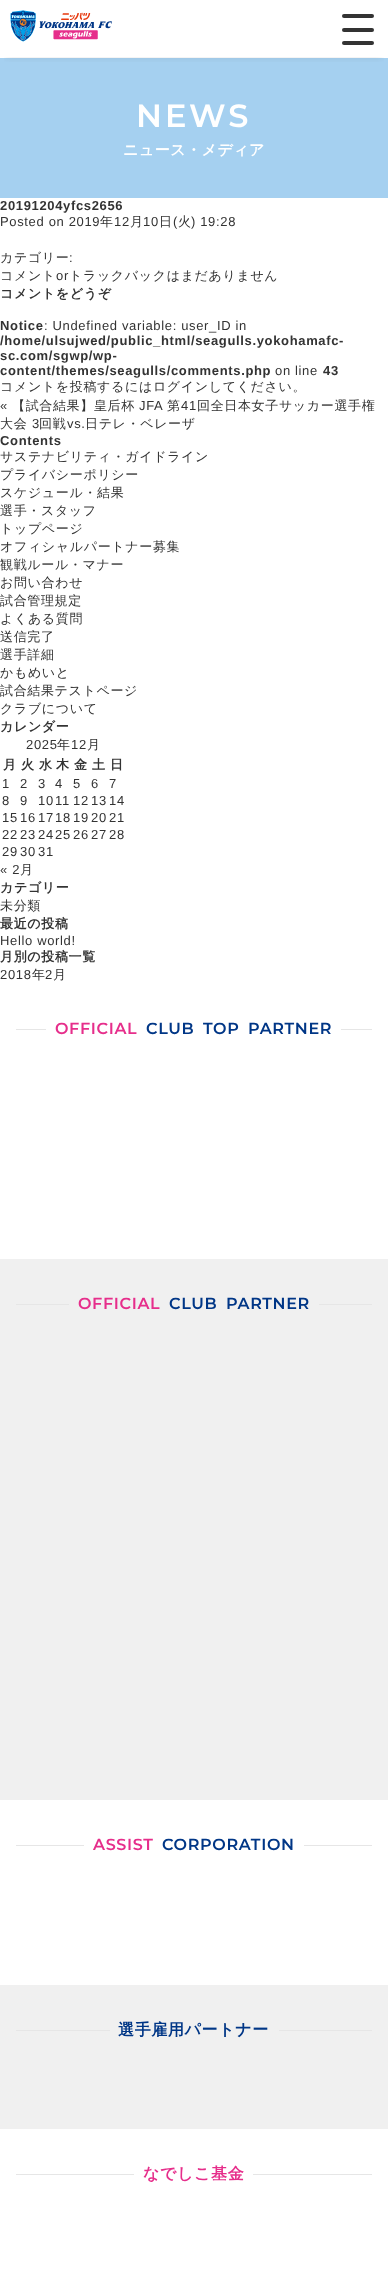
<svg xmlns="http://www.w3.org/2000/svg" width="388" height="2296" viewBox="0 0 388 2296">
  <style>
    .t1 { font: 600 32px Montserrat; letter-spacing: 3px; fill: #fff; }
    .t2 { font: bold 15px WenQuanYi Zen Hei; letter-spacing: 0.5px; fill: #fff; }
    .t3 { font: bold 13px Liberation Sans; letter-spacing: 0.65px; fill: #333; }
    .t4 { font: 13px Liberation Sans; letter-spacing: 0.65px; fill: #333; }
    .t5 { font: 500 13px WenQuanYi Zen Hei; letter-spacing: 0.65px; fill: #333; }
    .t6 { font: bold 13px WenQuanYi Zen Hei; letter-spacing: 0.65px; fill: #333; }
    .t7 { font: 600 16px Montserrat; letter-spacing: 0.65px; fill: #e62e8b; }
    .t8 { font: 600 16px Montserrat; letter-spacing: 0.65px; fill: #003686; }
    .t9 { font: bold 16px WenQuanYi Zen Hei; letter-spacing: 0.65px; fill: #003686; }
    .t10 { font: bold 16px WenQuanYi Zen Hei; letter-spacing: 0.65px; fill: #e62e8b; }
  </style>
  <defs>
    <clipPath id="clip1"><rect x="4" y="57" width="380" height="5"/></clipPath>
  </defs>
  <rect width="100%" height="100%" fill="#fff"/>
  <rect x="0" y="58" width="388" height="140" fill="#a5d0f0"/>
  <g clip-path="url(#clip1)">
    <rect x="6" y="14" width="376" height="45" fill="#6464641a" filter="blur(3px)"/>
  </g>
  <image x="10" y="10" width="102" height="32" href="images/1.png"/>
  <rect x="342" y="14" width="32" height="4" rx="2" fill="#333"/>
  <rect x="342" y="28" width="32" height="4" rx="2" fill="#333"/>
  <rect x="342" y="41" width="32" height="4" rx="2" fill="#333"/>
  <text x="136" y="127" class="t1">NEWS</text>
  <text x="123" y="155" class="t2">ニュース・メディア</text>
  <text x="0" y="210" class="t3">20191204yfcs2656</text>
  <text x="0" y="226" class="t4">Posted on 2019</text>
  <text x="100" y="226" class="t5">年</text>
  <text x="114" y="226" class="t4">12</text>
  <text x="130" y="226" class="t5">月</text>
  <text x="143" y="226" class="t4">10</text>
  <text x="159" y="226" class="t5">日</text>
  <text x="173" y="226" class="t4">(</text>
  <text x="178" y="226" class="t5">火</text>
  <text x="191" y="226" class="t4">) 19:28</text>
  <text x="0" y="262" class="t5">カテゴリー</text>
  <text x="69" y="262" class="t4">:</text>
  <text x="0" y="280" class="t5">コメント</text>
  <text x="56" y="280" class="t4">or</text>
  <text x="69" y="280" class="t5">トラックバックはまだありません</text>
  <text x="0" y="298" class="t6">コメントをどうぞ</text>
  <text x="0" y="330" class="t3">Notice</text>
  <text x="44" y="330" class="t4">: Undefined variable: user_ID in</text>
  <text x="0" y="345" class="t3">/home/ulsujwed/public_html/seagulls.yokohamafc-</text>
  <text x="0" y="360" class="t3">sc.com/sgwp/wp-</text>
  <text x="0" y="375" class="t3">content/themes/seagulls/comments.php</text>
  <text x="275" y="375" class="t4">on line</text>
  <text x="323" y="375" class="t3">43</text>
  <text x="0" y="391" class="t5">コメントを投稿するにはログインしてください。</text>
  <text x="0" y="410" class="t4">«</text>
  <text x="12" y="410" class="t5">【試合結果】皇后杯</text>
  <text x="139" y="410" class="t4">JFA</text>
  <text x="167" y="410" class="t5">第</text>
  <text x="181" y="410" class="t4">41</text>
  <text x="197" y="410" class="t5">回全日本女子サッカー選手権</text>
  <text x="0" y="428" class="t5">大会</text>
  <text x="32" y="428" class="t4">3</text>
  <text x="39" y="428" class="t5">回戦</text>
  <text x="67" y="428" class="t4">vs.</text>
  <text x="85" y="428" class="t5">日テレ・ベレーザ</text>
  <text x="0" y="445" class="t3">Contents</text>
  <text x="0" y="461" class="t5">サステナビリティ・ガイドライン</text>
  <text x="0" y="479" class="t5">プライバシーポリシー</text>
  <text x="0" y="497" class="t5">スケジュール・結果</text>
  <text x="0" y="515" class="t5">選手・スタッフ</text>
  <text x="0" y="533" class="t5">トップページ</text>
  <text x="0" y="551" class="t5">オフィシャルパートナー募集</text>
  <text x="0" y="569" class="t5">観戦ルール・マナー</text>
  <text x="0" y="587" class="t5">お問い合わせ</text>
  <text x="0" y="605" class="t5">試合管理規定</text>
  <text x="0" y="623" class="t5">よくある質問</text>
  <text x="0" y="641" class="t5">送信完了</text>
  <text x="0" y="659" class="t5">選手詳細</text>
  <text x="0" y="677" class="t5">かもめいと</text>
  <text x="0" y="695" class="t5">試合結果テストページ</text>
  <text x="0" y="713" class="t5">クラブについて</text>
  <text x="0" y="731" class="t6">カレンダー</text>
  <text x="26" y="749" class="t4">2025</text>
  <text x="57" y="749" class="t5">年</text>
  <text x="71" y="749" class="t4">12</text>
  <text x="87" y="749" class="t5">月</text>
  <text x="3" y="769" class="t6">月</text>
  <text x="21" y="769" class="t6">火</text>
  <text x="39" y="769" class="t6">水</text>
  <text x="56" y="769" class="t6">木</text>
  <text x="74" y="769" class="t6">金</text>
  <text x="92" y="769" class="t6">土</text>
  <text x="110" y="769" class="t6">日</text>
  <text x="2" y="788" class="t4">1</text>
  <text x="20" y="788" class="t4">2</text>
  <text x="38" y="788" class="t4">3</text>
  <text x="55" y="788" class="t4">4</text>
  <text x="73" y="788" class="t4">5</text>
  <text x="91" y="788" class="t4">6</text>
  <text x="109" y="788" class="t4">7</text>
  <text x="2" y="805" class="t4">8</text>
  <text x="20" y="805" class="t4">9</text>
  <text x="38" y="805" class="t4">10</text>
  <text x="55" y="805" class="t4">11</text>
  <text x="73" y="805" class="t4">12</text>
  <text x="91" y="805" class="t4">13</text>
  <text x="109" y="805" class="t4">14</text>
  <text x="2" y="822" class="t4">15</text>
  <text x="20" y="822" class="t4">16</text>
  <text x="38" y="822" class="t4">17</text>
  <text x="55" y="822" class="t4">18</text>
  <text x="73" y="822" class="t4">19</text>
  <text x="91" y="822" class="t4">20</text>
  <text x="109" y="822" class="t4">21</text>
  <text x="2" y="839" class="t4">22</text>
  <text x="20" y="839" class="t4">23</text>
  <text x="38" y="839" class="t4">24</text>
  <text x="55" y="839" class="t4">25</text>
  <text x="73" y="839" class="t4">26</text>
  <text x="91" y="839" class="t4">27</text>
  <text x="109" y="839" class="t4">28</text>
  <text x="2" y="856" class="t4">29</text>
  <text x="20" y="856" class="t4">30</text>
  <text x="38" y="856" class="t4">31</text>
  <text x="0" y="874" class="t4">« 2</text>
  <text x="20" y="874" class="t5">月</text>
  <text x="0" y="892" class="t6">カテゴリー</text>
  <text x="0" y="910" class="t5">未分類</text>
  <text x="0" y="928" class="t6">最近の投稿</text>
  <text x="0" y="945" class="t4">Hello world!</text>
  <text x="0" y="961" class="t6">月別の投稿一覧</text>
  <text x="0" y="979" class="t4">2018</text>
  <text x="32" y="979" class="t5">年</text>
  <text x="45" y="979" class="t4">2</text>
  <text x="53" y="979" class="t5">月</text>
  <rect x="16" y="1029" width="356" height="1" fill="#e6e6e6"/>
  <rect x="46" y="1029" width="295" height="1" fill="#fff"/>
  <text x="55" y="1034" class="t7">OFFICIAL</text>
  <text x="146" y="1034" class="t8">CLUB TOP PARTNER</text>
  <rect x="0" y="1259" width="388" height="541" fill="#f0f0f0"/>
  <rect x="16" y="1304" width="356" height="1" fill="#e6e6e6"/>
  <rect x="69" y="1304" width="250" height="1" fill="#f0f0f0"/>
  <text x="78" y="1309" class="t7">OFFICIAL</text>
  <text x="169" y="1309" class="t8">CLUB PARTNER</text>
  <rect x="16" y="1845" width="356" height="1" fill="#e6e6e6"/>
  <rect x="84" y="1845" width="220" height="1" fill="#fff"/>
  <text x="93" y="1850" class="t7">ASSIST</text>
  <text x="162" y="1850" class="t8">CORPORATION</text>
  <rect x="0" y="1985" width="388" height="144" fill="#f0f0f0"/>
  <rect x="16" y="2030" width="356" height="1" fill="#e6e6e6"/>
  <rect x="110" y="2030" width="169" height="1" fill="#f0f0f0"/>
  <text x="118" y="2035" class="t9">選手雇用パートナー</text>
  <rect x="16" y="2174" width="356" height="1" fill="#e6e6e6"/>
  <rect x="134" y="2174" width="119" height="1" fill="#fff"/>
  <text x="143" y="2179" class="t10">なでしこ基金</text>
</svg>
